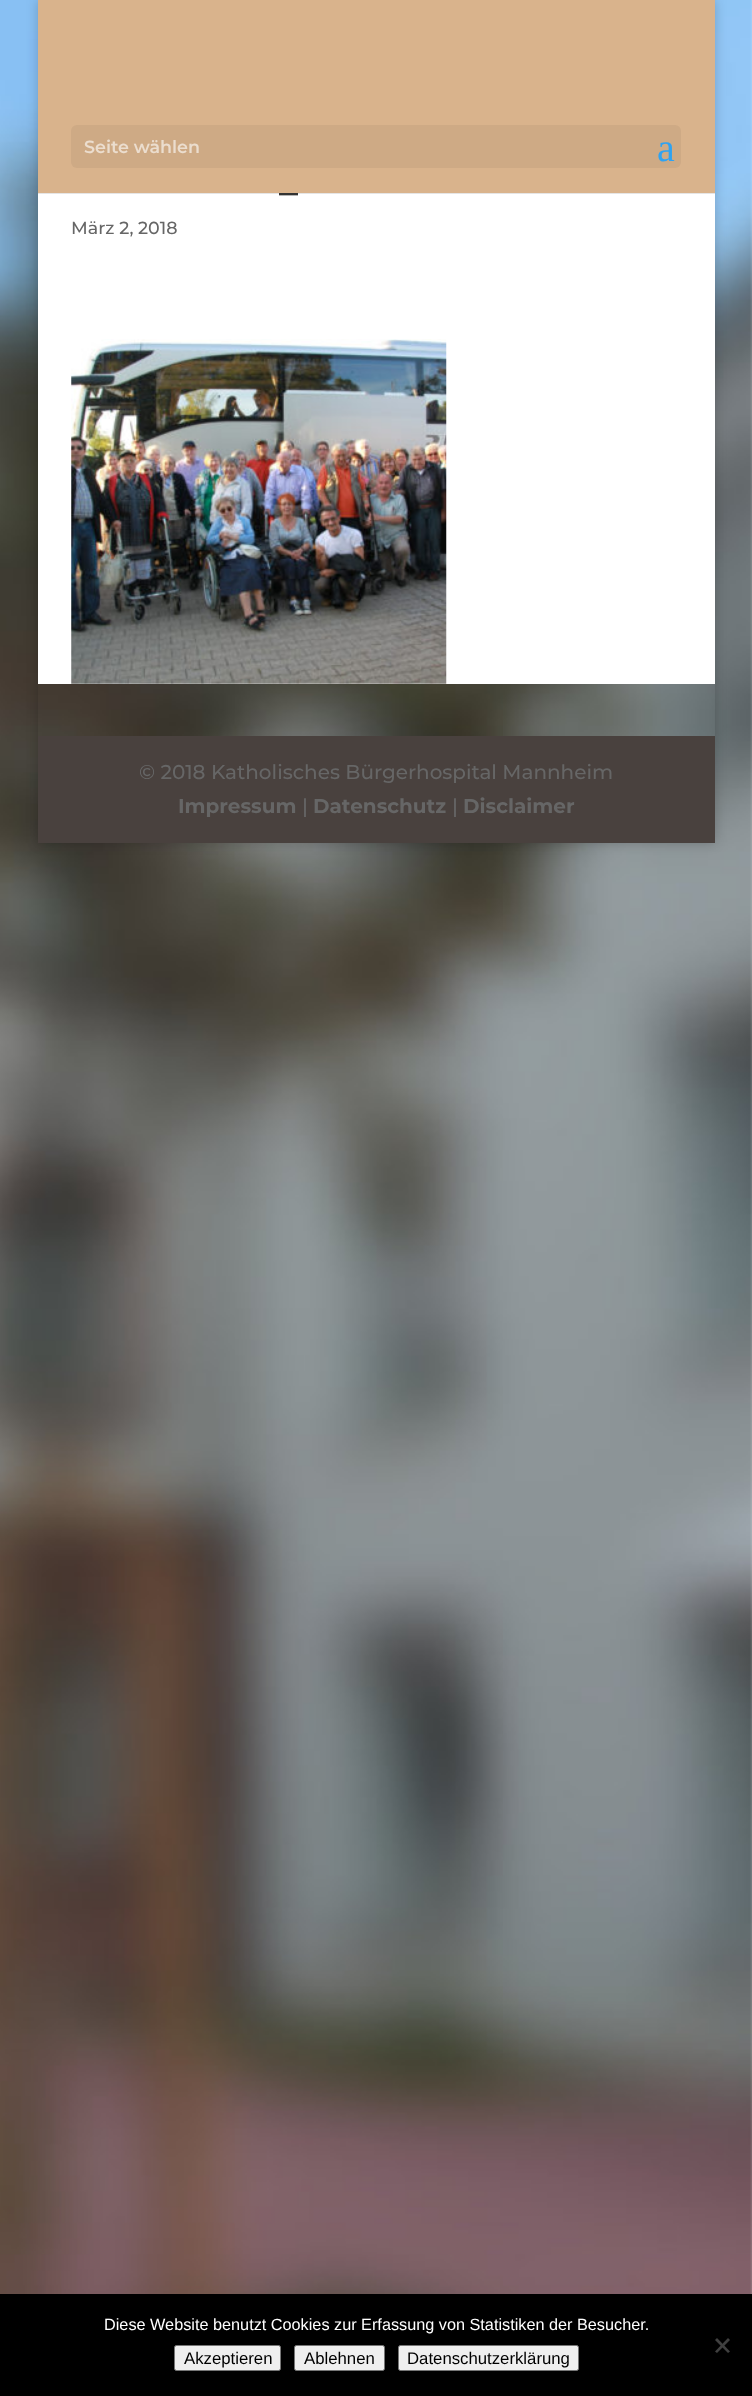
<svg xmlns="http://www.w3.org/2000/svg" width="752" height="2396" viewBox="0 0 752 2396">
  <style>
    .t1 { font: 600 17.5px Montserrat; fill: #ebddce; }
    .t2 { font: 40px Liberation Serif; fill: #2ea3f2; }
    .t3 { font: 500 38px Montserrat; fill: #333; }
    .t4 { font: 500 17.5px Montserrat; fill: #666; }
    .t5 { font: 500 20px Montserrat; fill: #666; }
    .t6 { font: bold 20px Montserrat; fill: #666; }
    .t7 { font: 16.25px Liberation Sans; fill: #fff; }
    .t8 { font: 16.75px Liberation Sans; fill: #000; }
  </style>
  <defs>
    <clipPath id="clip1"><path d="M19 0H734V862H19ZM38 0H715V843H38Z" clip-rule="evenodd"/></clipPath>
  </defs>
  <rect width="100%" height="100%" fill="#fff"/>
  <image x="0" y="0" width="752" height="2294" href="images/1.png"/>
  <g clip-path="url(#clip1)">
    <rect x="38" y="0" width="677" height="843" fill="#00000033" filter="blur(6px)"/>
  </g>
  <rect x="38" y="193" width="677" height="491" fill="#fff"/>
  <rect x="38" y="193" width="677" height="1" fill="#0000001a"/>
  <rect x="38" y="0" width="677" height="193" fill="#d9b38c"/>
  <rect x="71" y="125" width="610" height="43" rx="6" fill="#ceaa85"/>
  <text x="84" y="153" class="t1">Seite wählen</text>
  <text x="657" y="161" class="t2">a</text>
  <text x="279" y="193" class="t3">_</text>
  <text x="71" y="234" class="t4">März 2, 2018</text>
  <image x="71" y="339" width="376" height="345" href="images/2.png"/>
  <rect x="38" y="736" width="677" height="107" fill="#49413e"/>
  <text x="139" y="779" class="t5">© 2018 Katholisches Bürgerhospital Mannheim</text>
  <text x="178" y="813" class="t6">Impressum</text>
  <text x="302" y="813" class="t5">|</text>
  <text x="313" y="813" class="t6">Datenschutz</text>
  <text x="452" y="813" class="t5">|</text>
  <text x="463" y="813" class="t6">Disclaimer</text>
  <rect x="0" y="2294" width="752" height="102" fill="#000"/>
  <text x="104" y="2330" class="t7">Diese Website benutzt Cookies zur Erfassung von Statistiken der Besucher.</text>
  <path d="M728 2338L730 2340L717 2353L715 2351.5Z" fill="#404040"/>
  <path d="M715 2340L717 2338L730 2351.5L728 2353Z" fill="#404040"/>
  <rect x="174.5" y="2345.5" width="106" height="25" rx="2" fill="#efefef" stroke="#767676"/>
  <text x="184" y="2364" class="t8">Akzeptieren</text>
  <rect x="294.5" y="2345.5" width="90" height="25" rx="2" fill="#efefef" stroke="#767676"/>
  <text x="304" y="2364" class="t8">Ablehnen</text>
  <rect x="398.5" y="2345.5" width="180" height="25" rx="2" fill="#efefef" stroke="#767676"/>
  <text x="407" y="2364" class="t8">Datenschutzerklärung</text>
</svg>
